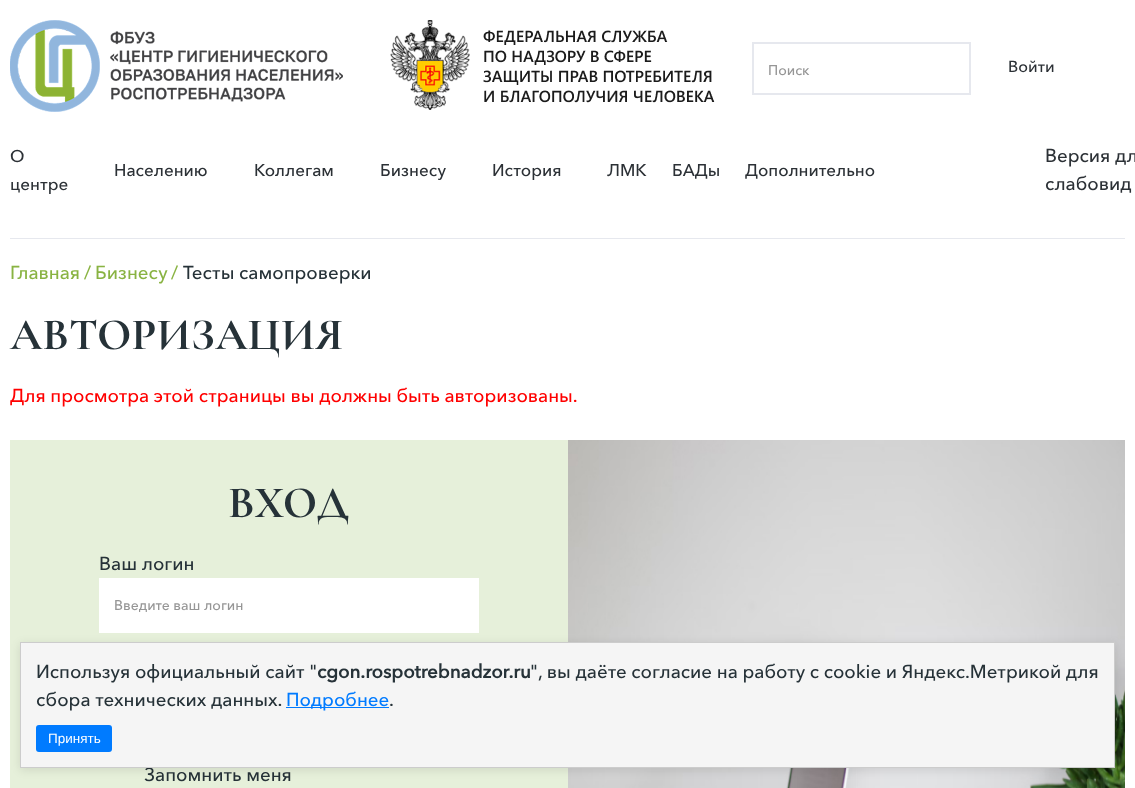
<svg xmlns="http://www.w3.org/2000/svg" width="1135" height="788" viewBox="0 0 1135 788">
  <style>
    .t1 { font: 500 14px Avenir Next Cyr; fill: #969696; }
    .t2 { font: 500 16px Avenir Next Cyr; fill: #2c3136; }
    .t3 { font: 500 17px Avenir Next Cyr; fill: #2c3136; }
    .t4 { font: 500 18.7px Avenir Next Cyr; fill: #2c3136; }
    .t5 { font: 500 18.7px Avenir Next Cyr; fill: #89b342; }
    .t6 { font: 500 18.7px Avenir Next Cyr; fill: #263238; }
    .t7 { font: bold 45px Cormorant Garamond; fill: #263238; }
    .t8 { font: 500 18.7px Avenir Next Cyr; fill: #f00; }
    .t9 { font: bold 18.7px Avenir Next Cyr; fill: #263238; }
    .t10 { font: 500 18.7px Avenir Next Cyr; fill: #007bff; }
    .t11 { font: 13.5px Liberation Sans; fill: #fff; }
  </style>
  <rect width="100%" height="100%" fill="#fff"/>
  <image x="10" y="20" width="333" height="92" href="images/1.png"/>
  <image x="390" y="20" width="325" height="90" href="images/2.png"/>
  <rect x="753" y="43" width="217" height="51" fill="none" stroke="#e6e8ee" stroke-width="2"/>
  <text x="768" y="75" class="t1">Поиск</text>
  <text x="1008" y="72" class="t2">Войти</text>
  <text x="10" y="162" class="t3">О</text>
  <text x="10" y="190" class="t3">центре</text>
  <text x="114" y="176" class="t3">Населению</text>
  <text x="254" y="176" class="t3">Коллегам</text>
  <text x="380" y="176" class="t3">Бизнесу</text>
  <text x="492" y="176" class="t3">История</text>
  <text x="607" y="176" class="t3">ЛМК</text>
  <text x="672" y="176" class="t3">БАДы</text>
  <text x="745" y="176" class="t3">Дополнительно</text>
  <text x="1045" y="162" class="t4">Версия дл</text>
  <text x="1045" y="190" class="t4">слабовид</text>
  <rect x="10" y="238" width="1115" height="1" fill="#e6e8ee"/>
  <text x="10" y="279" class="t5">Главная</text>
  <text x="84" y="279" class="t5">/</text>
  <text x="95" y="279" class="t5">Бизнесу</text>
  <text x="171" y="279" class="t5">/</text>
  <text x="183" y="279" class="t6">Тесты самопроверки</text>
  <text x="10" y="349" class="t7">АВТОРИЗАЦИЯ</text>
  <text x="10" y="402" class="t8">Для просмотра этой страницы вы должны быть авторизованы.</text>
  <rect x="10" y="440" width="558" height="348" fill="#e6f0da"/>
  <text x="228" y="517" class="t7">ВХОД</text>
  <text x="99" y="570" class="t6">Ваш логин</text>
  <rect x="99" y="578" width="380" height="55" fill="#fff"/>
  <text x="114" y="610" class="t1">Введите ваш логин</text>
  <text x="144" y="781" class="t6">Запомнить меня</text>
  <image x="568" y="440" width="557" height="348" href="images/3.png"/>
  <rect x="20" y="644" width="1095" height="126" fill="#0000001a" filter="blur(5px)"/>
  <rect x="20.5" y="642.5" width="1094" height="125" fill="#f5f5f5" stroke="#ccc"/>
  <text x="36" y="678" class="t6">Используя официальный сайт "</text>
  <text x="317" y="678" class="t9">cgon.rospotrebnadzor.ru</text>
  <text x="530" y="678" class="t6">", вы даёте согласие на работу с cookie и Яндекс.Метрикой для</text>
  <text x="36" y="706" class="t6">сбора технических данных.</text>
  <rect x="286" y="707" width="103" height="1" fill="#007bff"/>
  <text x="286" y="706" class="t10">Подробнее</text>
  <text x="389" y="706" class="t6">.</text>
  <rect x="36" y="725" width="76" height="27" rx="3" fill="#007bff"/>
  <text x="48" y="743" class="t11">Принять</text>
</svg>
